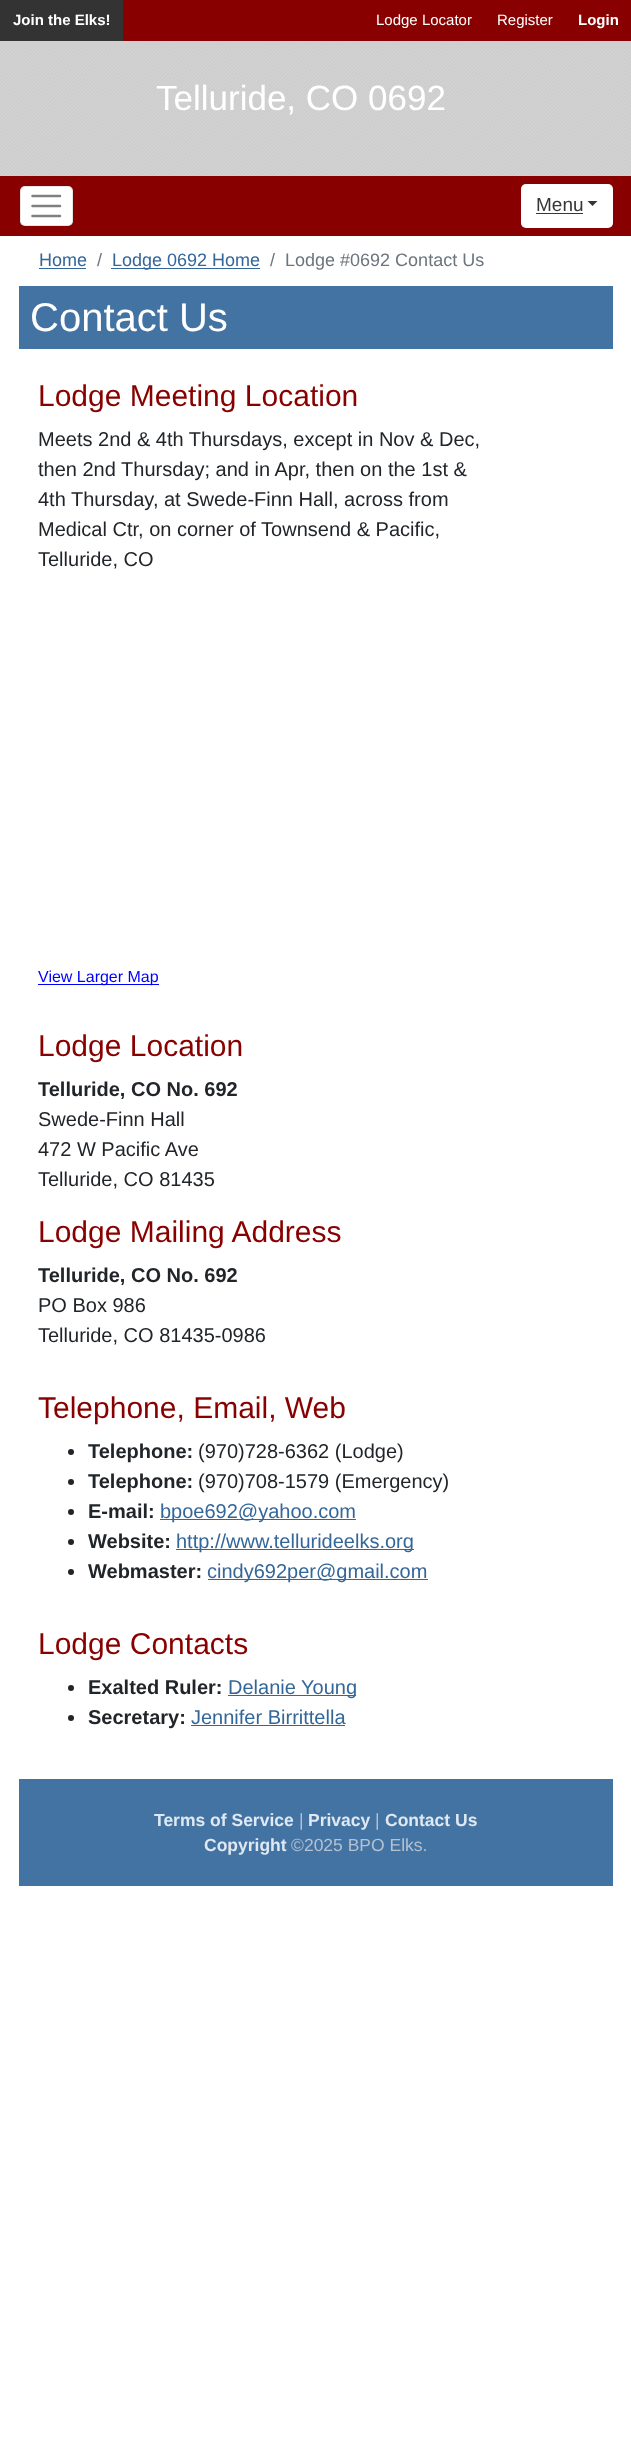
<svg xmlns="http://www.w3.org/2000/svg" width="631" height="2439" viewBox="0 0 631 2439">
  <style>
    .t1 { font: bold 15px Liberation Sans; fill: #fff; }
    .t2 { font: 15px Liberation Sans; fill: #fff; }
    .t3 { font: 35px Liberation Sans; fill: #fff; }
    .t4 { font: 19px Liberation Sans; fill: #363636; }
    .t5 { font: 18px Liberation Sans; fill: #369; }
    .t6 { font: 18px Liberation Sans; fill: #6c757d; }
    .t7 { font: 40px Liberation Sans; fill: #fff; }
    .t8 { font: 30px Liberation Sans; fill: #800; }
    .t9 { font: 20px Liberation Sans; fill: #212529; }
    .t10 { font: 16px Liberation Sans; fill: #00f; }
    .t11 { font: bold 20px Liberation Sans; fill: #212529; }
    .t12 { font: 20px Liberation Sans; fill: #369; }
    .t13 { font: bold 17.5px Liberation Sans; fill: #dfe8f3; }
    .t14 { font: 17.5px Liberation Sans; fill: #b4c2d2; }
  </style>
  <rect width="100%" height="100%" fill="#fff"/>
  <image x="0" y="41" width="631" height="135" href="images/1.png"/>
  <rect x="123" y="0" width="508" height="41" fill="#800"/>
  <rect x="0" y="0" width="123" height="41" fill="#333"/>
  <text x="13" y="25" class="t1">Join the Elks!</text>
  <text x="376" y="25" class="t2">Lodge Locator</text>
  <text x="497" y="25" class="t2">Register</text>
  <text x="578" y="25" class="t1">Login</text>
  <text x="156" y="110" class="t3">Telluride, CO 0692</text>
  <rect x="0" y="176" width="631" height="60" fill="#800"/>
  <rect x="20" y="186" width="53" height="40" rx="5" fill="#fff"/>
  <rect x="20.5" y="186.5" width="52" height="39" rx="4.5" fill="none" stroke="#0000001a"/>
  <path d="M32.5 196H60M32.5 206H60M32.5 216H60" fill="none" stroke="#808080" stroke-width="2.5" stroke-linecap="round"/>
  <rect x="521" y="184" width="92" height="44" rx="5" fill="#fff"/>
  <text x="536" y="211" class="t4">Menu</text>
  <rect x="536" y="213" width="47" height="1" fill="#363636"/>
  <path d="M587.5 201H597.5L592.5 206Z" fill="#363636"/>
  <text x="39" y="266" class="t5">Home</text>
  <rect x="39" y="268" width="47" height="1" fill="#369"/>
  <text x="97" y="266" class="t6">/</text>
  <rect x="111" y="268" width="149" height="1" fill="#369"/>
  <text x="112" y="266" class="t5">Lodge 0692 Home</text>
  <text x="270" y="266" class="t6">/</text>
  <text x="285" y="266" class="t6">Lodge #0692 Contact Us</text>
  <rect x="19" y="286" width="594" height="63" fill="#4373a2"/>
  <text x="30" y="331" class="t7">Contact Us</text>
  <text x="38" y="406" class="t8">Lodge Meeting Location</text>
  <text x="38" y="446" class="t9">Meets 2nd &amp; 4th Thursdays, except in Nov &amp; Dec,</text>
  <text x="38" y="476" class="t9">then 2nd Thursday; and in Apr, then on the 1st &amp;</text>
  <text x="38" y="506" class="t9">4th Thursday, at Swede-Finn Hall, across from</text>
  <text x="38" y="536" class="t9">Medical Ctr, on corner of Townsend &amp; Pacific,</text>
  <text x="38" y="566" class="t9">Telluride, CO</text>
  <rect x="38" y="984" width="121" height="1" fill="#00f"/>
  <text x="38" y="982" class="t10">View Larger Map</text>
  <text x="38" y="1056" class="t8">Lodge Location</text>
  <text x="38" y="1096" class="t11">Telluride, CO No. 692</text>
  <text x="38" y="1126" class="t9">Swede-Finn Hall</text>
  <text x="38" y="1156" class="t9">472 W Pacific Ave</text>
  <text x="38" y="1186" class="t9">Telluride, CO 81435</text>
  <text x="38" y="1242" class="t8">Lodge Mailing Address</text>
  <text x="38" y="1282" class="t11">Telluride, CO No. 692</text>
  <text x="38" y="1312" class="t9">PO Box 986</text>
  <text x="38" y="1342" class="t9">Telluride, CO 81435-0986</text>
  <text x="38" y="1418" class="t8">Telephone, Email, Web</text>
  <circle cx="71" cy="1452" r="3" fill="#212529"/>
  <text x="88" y="1458" class="t11">Telephone:</text>
  <text x="198" y="1458" class="t9">(970)728-6362 (Lodge)</text>
  <circle cx="71" cy="1482" r="3" fill="#212529"/>
  <text x="88" y="1488" class="t11">Telephone:</text>
  <text x="198" y="1488" class="t9">(970)708-1579 (Emergency)</text>
  <circle cx="71" cy="1512" r="3" fill="#212529"/>
  <text x="88" y="1518" class="t11">E-mail:</text>
  <rect x="160" y="1519" width="196" height="1" fill="#369"/>
  <text x="160" y="1518" class="t12">bpoe692@yahoo.com</text>
  <circle cx="71" cy="1542" r="3" fill="#212529"/>
  <text x="88" y="1548" class="t11">Website:</text>
  <rect x="176" y="1549" width="238" height="1" fill="#369"/>
  <text x="176" y="1548" class="t12">http://www.tellurideelks.org</text>
  <circle cx="71" cy="1572" r="3" fill="#212529"/>
  <text x="88" y="1578" class="t11">Webmaster:</text>
  <rect x="208" y="1579" width="220" height="1" fill="#369"/>
  <text x="207" y="1578" class="t12">cindy692per@gmail.com</text>
  <text x="38" y="1654" class="t8">Lodge Contacts</text>
  <circle cx="71" cy="1688" r="3" fill="#212529"/>
  <text x="88" y="1694" class="t11">Exalted Ruler:</text>
  <rect x="228" y="1695" width="128" height="1" fill="#369"/>
  <text x="228" y="1694" class="t12">Delanie Young</text>
  <circle cx="71" cy="1718" r="3" fill="#212529"/>
  <text x="88" y="1724" class="t11">Secretary:</text>
  <text x="191" y="1724" class="t12">Jennifer Birrittella</text>
  <rect x="191" y="1725" width="154" height="1" fill="#369"/>
  <rect x="19" y="1779" width="594" height="107" fill="#4373a2"/>
  <text x="154" y="1826" class="t13">Terms of Service</text>
  <text x="299" y="1826" class="t14">|</text>
  <text x="308" y="1826" class="t13">Privacy</text>
  <text x="375" y="1826" class="t14">|</text>
  <text x="385" y="1826" class="t13">Contact Us</text>
  <text x="204" y="1851" class="t13">Copyright</text>
  <text x="291" y="1851" class="t14">©2025 BPO Elks.</text>
</svg>
